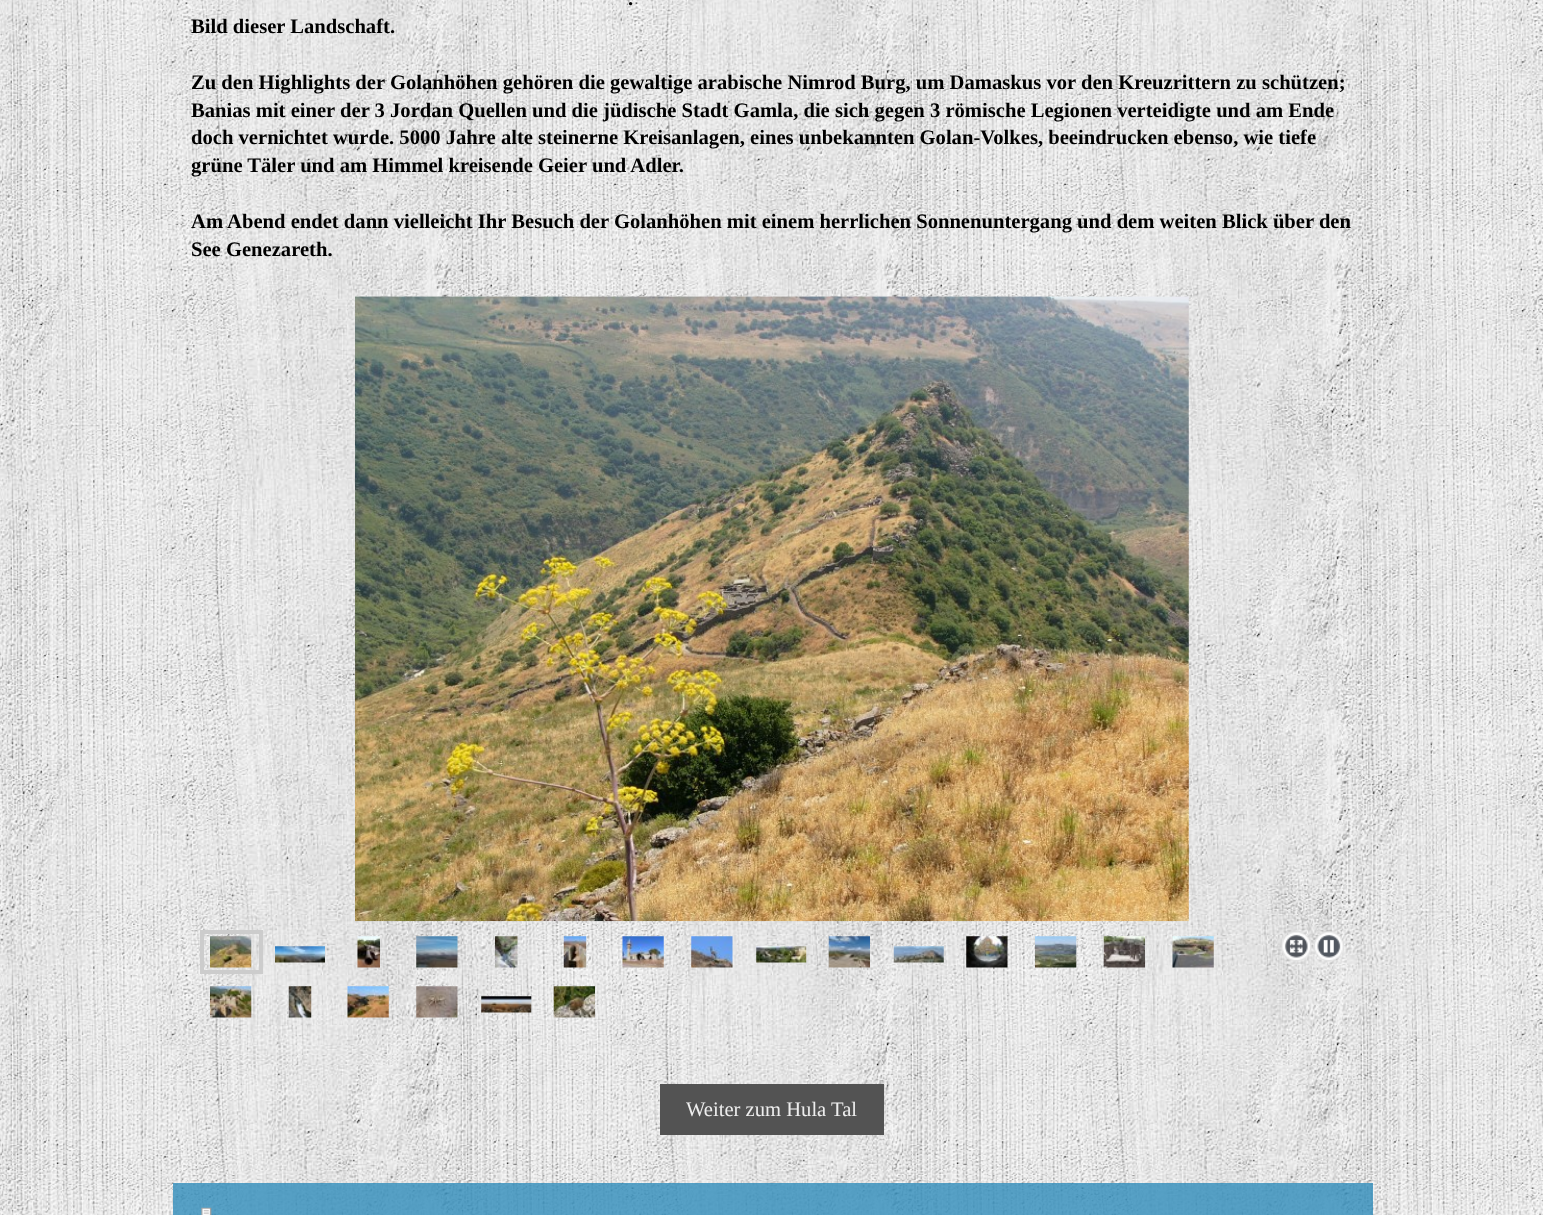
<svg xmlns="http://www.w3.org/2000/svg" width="1543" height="1215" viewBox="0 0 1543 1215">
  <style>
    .t1 { font: bold 20.62px Liberation Serif; fill: #000; }
    .t2 { font: 20.62px Liberation Serif; fill: #eee; }
  </style>
  <rect width="100%" height="100%" fill="#fff"/>
  <image x="0" y="0" width="1543" height="1215" href="images/1.png"/>
  <text x="628" y="5" class="t1">.</text>
  <text x="191" y="33" class="t1">Bild dieser Landschaft.</text>
  <text x="191" y="89" class="t1">Zu den Highlights der Golanhöhen gehören die gewaltige arabische Nimrod Burg, um Damaskus vor den Kreuzrittern zu schützen;</text>
  <text x="191" y="117" class="t1">Banias mit einer der 3 Jordan Quellen und die jüdische Stadt Gamla, die sich gegen 3 römische Legionen verteidigte und am Ende</text>
  <text x="191" y="144" class="t1">doch vernichtet wurde. 5000 Jahre alte steinerne Kreisanlagen, eines unbekannten Golan-Volkes, beeindrucken ebenso, wie tiefe</text>
  <text x="191" y="172" class="t1">grüne Täler und am Himmel kreisende Geier und Adler.</text>
  <text x="191" y="228" class="t1">Am Abend endet dann vielleicht Ihr Besuch der Golanhöhen mit einem herrlichen Sonnenuntergang und dem weiten Blick über den</text>
  <text x="191" y="256" class="t1">See Genezareth.</text>
  <image x="355" y="296" width="834" height="626" href="images/2.png"/>
  <rect x="202" y="932" width="59" height="40" fill="none" stroke="#ccc" stroke-width="4"/>
  <image x="210" y="936" width="42" height="32" href="images/3.png"/>
  <image x="275" y="946" width="50" height="17" href="images/4.png"/>
  <image x="357" y="936" width="23" height="32" href="images/5.png"/>
  <image x="416" y="936" width="42" height="32" href="images/6.png"/>
  <image x="495" y="936" width="23" height="32" href="images/7.png"/>
  <image x="563" y="936" width="24" height="32" href="images/8.png"/>
  <image x="622" y="936" width="42" height="32" href="images/9.png"/>
  <image x="691" y="936" width="42" height="32" href="images/10.png"/>
  <image x="756" y="946" width="51" height="17" href="images/11.png"/>
  <image x="828" y="936" width="42" height="32" href="images/12.png"/>
  <image x="893" y="946" width="51" height="17" href="images/13.png"/>
  <image x="966" y="936" width="42" height="32" href="images/14.png"/>
  <image x="1035" y="936" width="42" height="32" href="images/15.png"/>
  <image x="1103" y="936" width="42" height="32" href="images/16.png"/>
  <image x="1172" y="936" width="42" height="32" href="images/17.png"/>
  <image x="1281" y="931" width="31" height="30" href="images/18.png"/>
  <image x="1314" y="931" width="30" height="31" href="images/19.png"/>
  <image x="210" y="986" width="42" height="32" href="images/20.png"/>
  <image x="288" y="986" width="24" height="32" href="images/21.png"/>
  <image x="347" y="986" width="42" height="32" href="images/22.png"/>
  <image x="416" y="986" width="42" height="32" href="images/23.png"/>
  <image x="481" y="996" width="51" height="17" href="images/24.png"/>
  <image x="553" y="986" width="42" height="32" href="images/25.png"/>
  <rect x="660" y="1084" width="224" height="51" fill="#535353"/>
  <text x="686" y="1116" class="t2">Weiter zum Hula Tal</text>
  <rect x="173" y="1183" width="1200" height="32" fill="#308cbacc"/>
  <image x="201" y="1207" width="11" height="8" href="images/26.png"/>
</svg>
